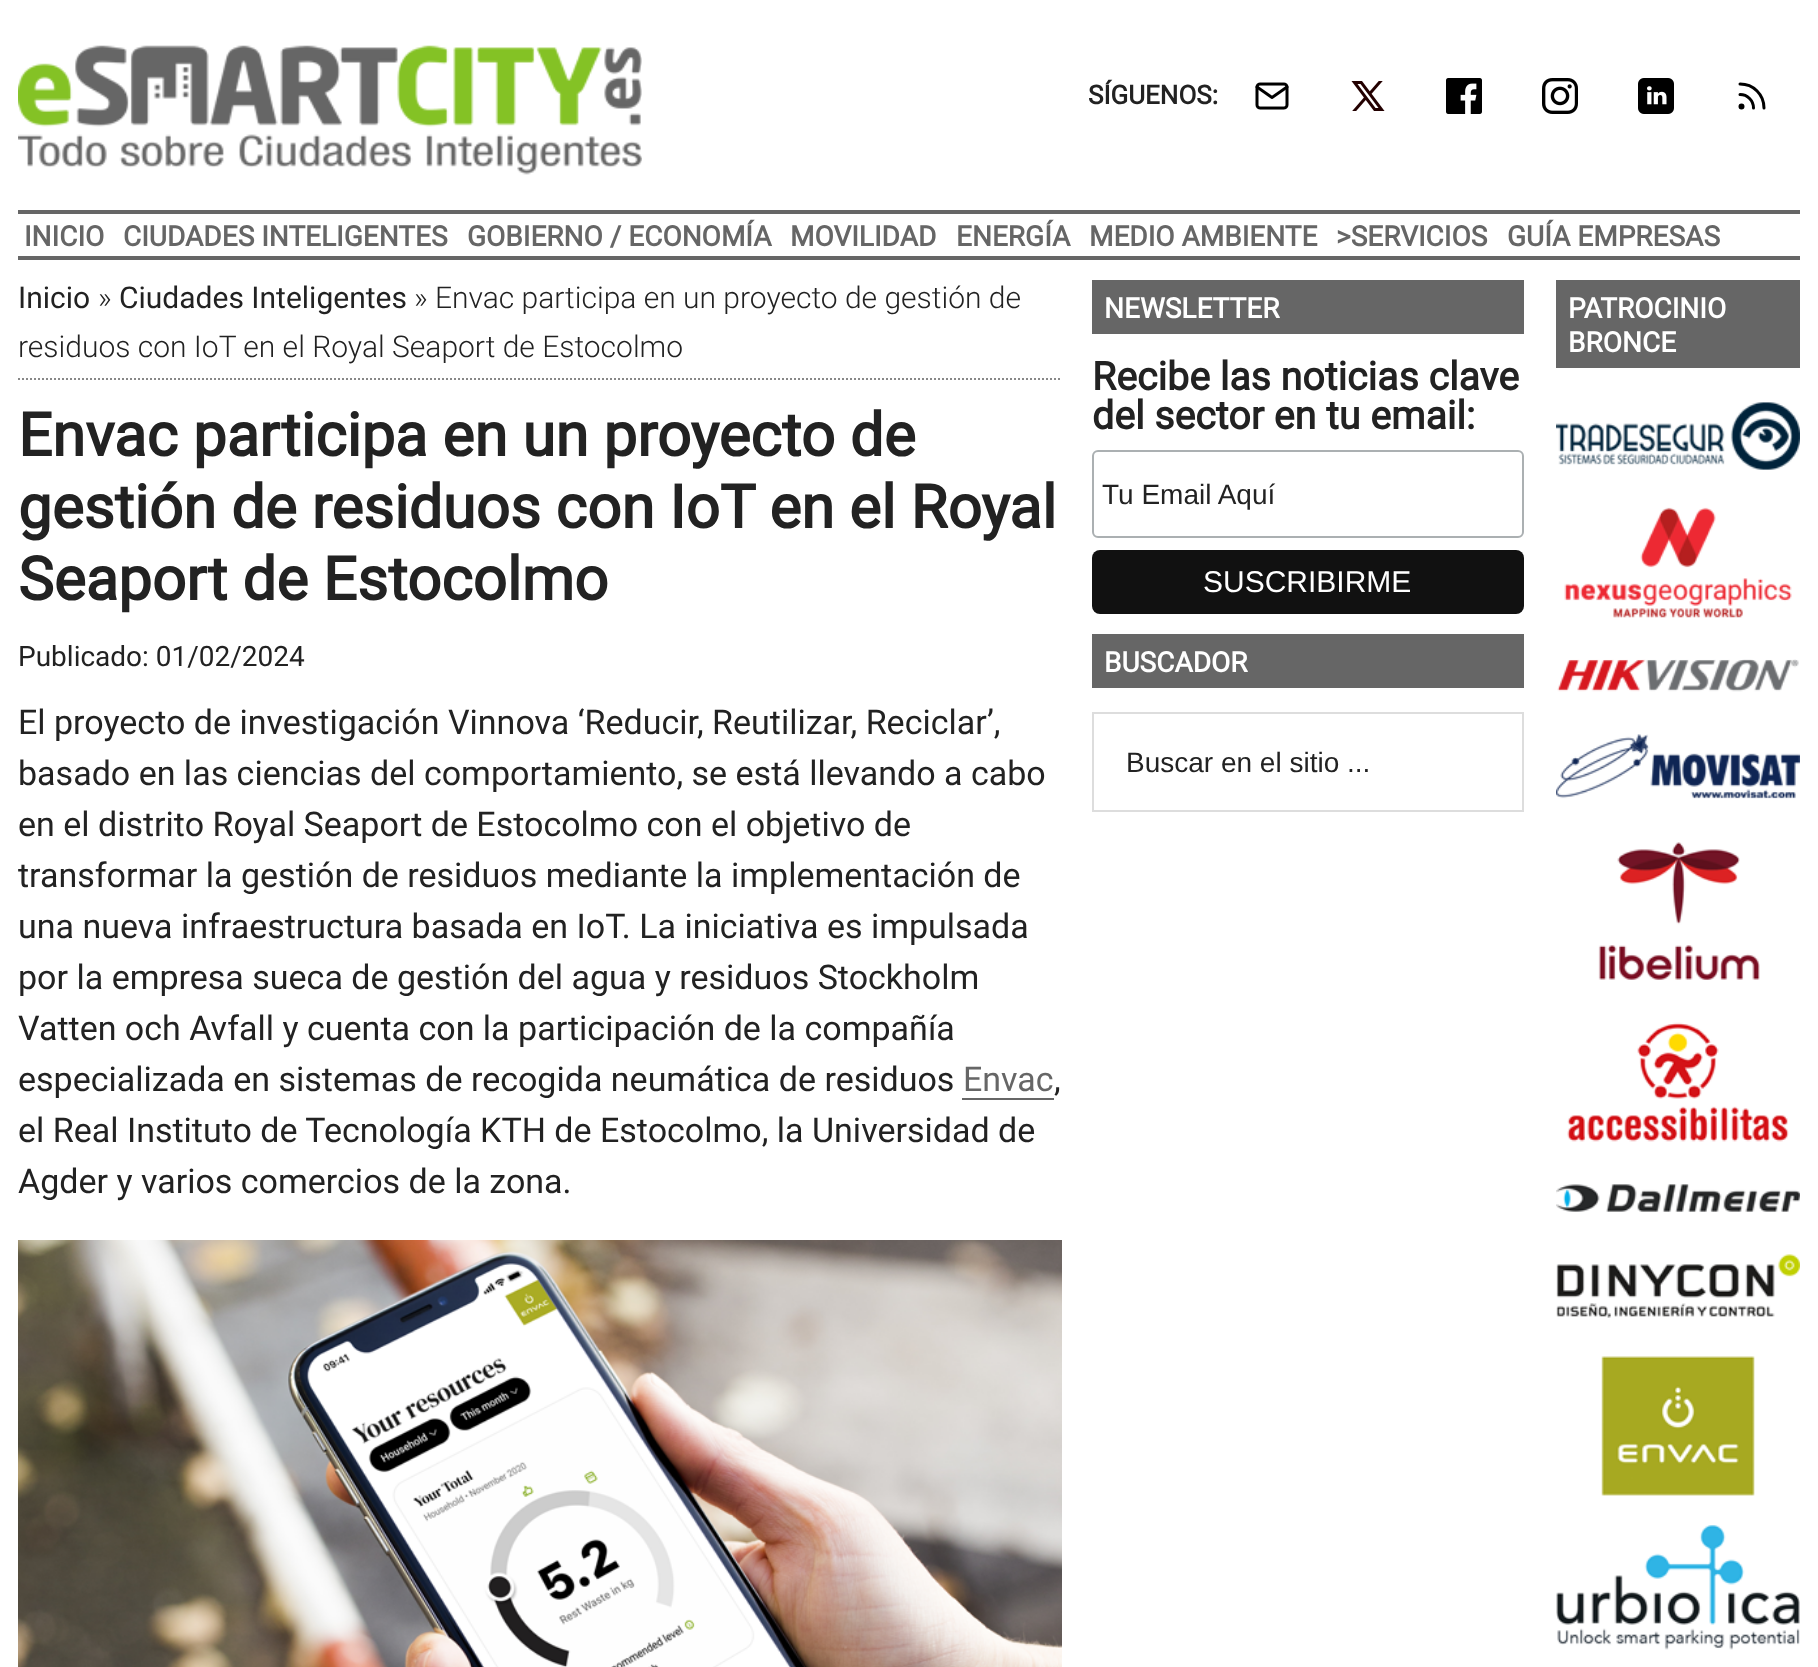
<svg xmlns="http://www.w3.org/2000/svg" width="1818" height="1667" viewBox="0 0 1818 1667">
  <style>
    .t1 { font: bold 26px Roboto; fill: #222; }
    .t2 { font: bold 28px Roboto; fill: #666; }
    .t3 { font: 30px Roboto; fill: #222; }
    .t4 { font: 300 30px Roboto; fill: #222; }
    .t5 { font: bold 60px Roboto; fill: #222; }
    .t6 { font: 28px Roboto; fill: #222; }
    .t7 { font: 34px Roboto; fill: #222; }
    .t8 { font: 34px Roboto; fill: #666; }
    .t9 { font: bold 28px Roboto; fill: #fff; }
    .t10 { font: bold 39.25px Roboto; fill: #222; }
    .t11 { font: 28px Liberation Sans; fill: #222; }
    .t12 { font: 30px Liberation Sans; fill: #fff; }
  </style>
  <rect width="100%" height="100%" fill="#fff"/>
  <rect x="18" y="210" width="1782" height="4" fill="#666"/>
  <image x="18" y="45" width="624" height="130" href="images/1.png"/>
  <text x="1088" y="104" class="t1">SÍGUENOS:</text>
  <image x="1255" y="82" width="34" height="28" href="images/2.png"/>
  <image x="1351" y="81" width="34" height="30" href="images/3.png"/>
  <image x="1446" y="78" width="36" height="36" href="images/4.png"/>
  <image x="1542" y="78" width="36" height="36" href="images/5.png"/>
  <image x="1638" y="78" width="36" height="36" href="images/6.png"/>
  <path d="M1740 94.5C1747.5 94.5 1753.5 100.5 1753.5 108M1740 84C1753.5 84 1764 94.5 1764 108" fill="none" stroke="#000" stroke-width="3" stroke-linecap="round" stroke-linejoin="round"/>
  <circle cx="1741.5" cy="106.5" r="1.5" fill="none" stroke="#000" stroke-width="3"/>
  <rect x="18" y="256" width="1782" height="4" fill="#666"/>
  <text x="24" y="246" class="t2">INICIO</text>
  <text x="123" y="246" class="t2">CIUDADES INTELIGENTES</text>
  <text x="467" y="246" class="t2">GOBIERNO / ECONOMÍA</text>
  <text x="790" y="246" class="t2">MOVILIDAD</text>
  <text x="956" y="246" class="t2">ENERGÍA</text>
  <text x="1089" y="246" class="t2">MEDIO AMBIENTE</text>
  <text x="1336" y="246" class="t2">&gt;SERVICIOS</text>
  <text x="1507" y="246" class="t2">GUÍA EMPRESAS</text>
  <path d="M18 379H1062" fill="none" stroke="#888" stroke-width="2" stroke-dasharray="2 2"/>
  <text x="18" y="308" class="t3">Inicio</text>
  <text x="98" y="308" class="t4">»</text>
  <text x="119" y="308" class="t3">Ciudades Inteligentes</text>
  <text x="414" y="308" class="t4">» Envac participa en un proyecto de gestión de</text>
  <text x="18" y="357" class="t4">residuos con IoT en el Royal Seaport de Estocolmo</text>
  <text x="18" y="456" class="t5">Envac participa en un proyecto de</text>
  <text x="18" y="528" class="t5">gestión de residuos con IoT en el Royal</text>
  <text x="18" y="600" class="t5">Seaport de Estocolmo</text>
  <text x="18" y="666" class="t6">Publicado: 01/02/2024</text>
  <text x="18" y="734" class="t7">El proyecto de investigación Vinnova ‘Reducir, Reutilizar, Reciclar’,</text>
  <text x="18" y="785" class="t7">basado en las ciencias del comportamiento, se está llevando a cabo</text>
  <text x="18" y="836" class="t7">en el distrito Royal Seaport de Estocolmo con el objetivo de</text>
  <text x="18" y="887" class="t7">transformar la gestión de residuos mediante la implementación de</text>
  <text x="18" y="938" class="t7">una nueva infraestructura basada en IoT. La iniciativa es impulsada</text>
  <text x="18" y="989" class="t7">por la empresa sueca de gestión del agua y residuos Stockholm</text>
  <text x="18" y="1040" class="t7">Vatten och Avfall y cuenta con la participación de la compañía</text>
  <text x="18" y="1091" class="t7">especializada en sistemas de recogida neumática de residuos</text>
  <text x="963" y="1091" class="t8">Envac</text>
  <rect x="962" y="1098" width="92" height="2" fill="#666"/>
  <text x="1054" y="1091" class="t7">,</text>
  <text x="18" y="1142" class="t7">el Real Instituto de Tecnología KTH de Estocolmo, la Universidad de</text>
  <text x="18" y="1193" class="t7">Agder y varios comercios de la zona.</text>
  <image x="18" y="1240" width="1044" height="427" href="images/7.png"/>
  <rect x="1092" y="280" width="432" height="54" fill="#666"/>
  <text x="1104" y="318" class="t9">NEWSLETTER</text>
  <text x="1092" y="390" class="t10">Recibe las noticias clave</text>
  <text x="1092" y="429" class="t10">del sector en tu email:</text>
  <rect x="1093" y="451" width="430" height="86" rx="5" fill="none" stroke="#abb0b2" stroke-width="2"/>
  <text x="1102" y="504" class="t11">Tu Email Aquí</text>
  <rect x="1092" y="550" width="432" height="64" rx="8" fill="#111"/>
  <text x="1203" y="592" class="t12">SUSCRIBIRME</text>
  <rect x="1092" y="634" width="432" height="54" fill="#666"/>
  <text x="1104" y="672" class="t9">BUSCADOR</text>
  <rect x="1093" y="713" width="430" height="98" fill="none" stroke="#ddd" stroke-width="2"/>
  <text x="1126" y="772" class="t11">Buscar en el sitio ...</text>
  <rect x="1556" y="280" width="244" height="88" fill="#666"/>
  <text x="1568" y="318" class="t9">PATROCINIO</text>
  <text x="1568" y="352" class="t9">BRONCE</text>
  <image x="1556" y="402" width="244" height="68" href="images/8.png"/>
  <image x="1564" y="507" width="228" height="111" href="images/9.png"/>
  <image x="1557" y="659" width="242" height="33" href="images/10.png"/>
  <image x="1556" y="734" width="244" height="65" href="images/11.png"/>
  <image x="1598" y="842" width="162" height="138" href="images/12.png"/>
  <image x="1567" y="1022" width="222" height="120" href="images/13.png"/>
  <image x="1556" y="1184" width="244" height="28" href="images/14.png"/>
  <image x="1556" y="1254" width="244" height="64" href="images/15.png"/>
  <image x="1601" y="1356" width="154" height="140" href="images/16.png"/>
  <image x="1556" y="1525" width="244" height="125" href="images/17.png"/>
</svg>
